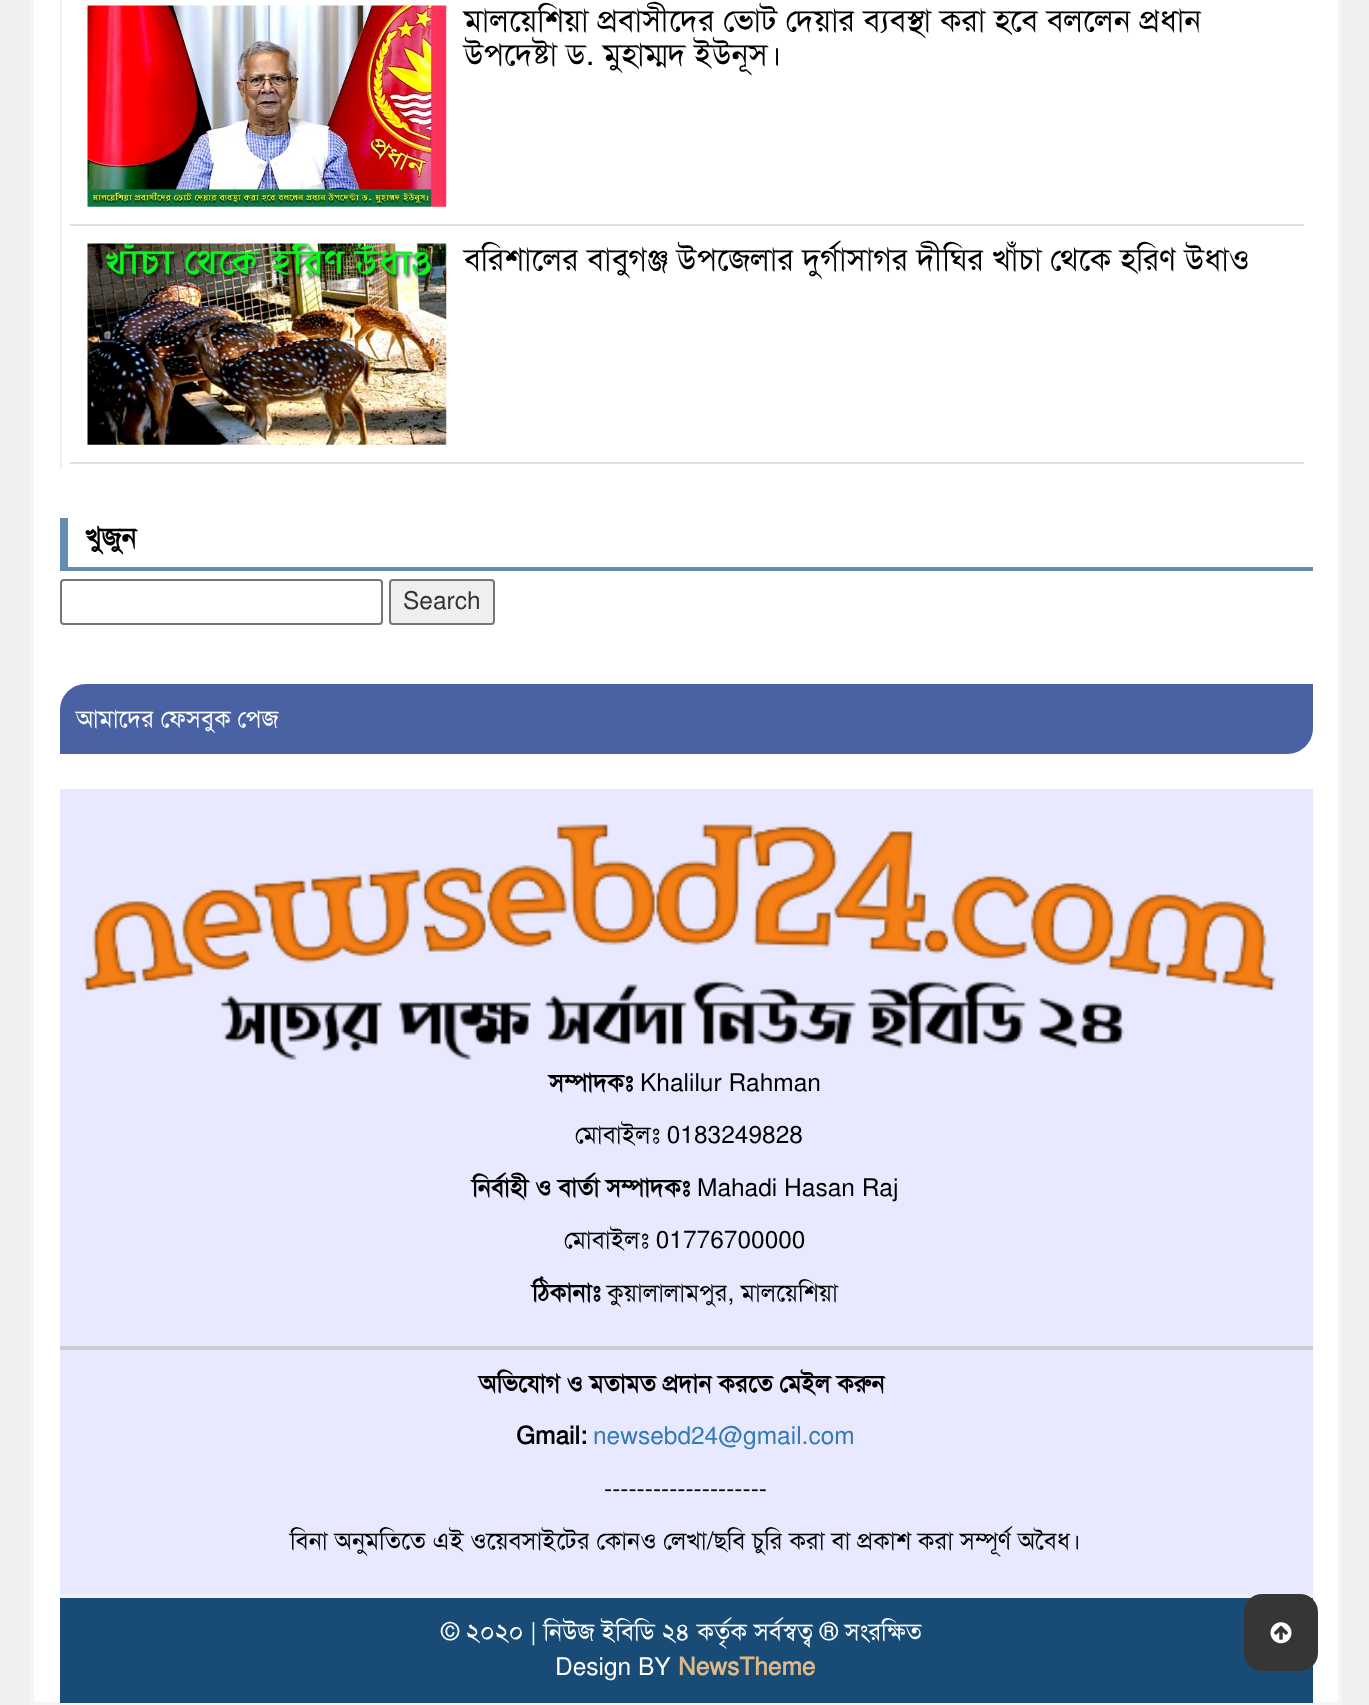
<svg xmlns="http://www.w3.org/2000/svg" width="1369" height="1705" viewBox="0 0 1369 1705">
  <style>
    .t1 { font: 31.5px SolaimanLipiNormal; fill: #000; }
    .t2 { font: bold 28px SolaimanLipiNormal; fill: #000; }
    .t3 { font: 24.5px SolaimanLipiNormal; fill: #333; }
    .t4 { font: 24.5px SolaimanLipiNormal; fill: #fff; }
    .t5 { font: bold 24.5px SolaimanLipiNormal; fill: #000; }
    .t6 { font: 24.5px SolaimanLipiNormal; fill: #000; }
    .t7 { font: 24.5px SolaimanLipiNormal; fill: #337ab7; }
    .t8 { font: bold 24.5px SolaimanLipiNormal; fill: #deb887; }
  </style>
  <rect width="100%" height="100%" fill="#f0f0f0"/>
  <rect x="32" y="-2" width="1308" height="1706" fill="#fff" stroke="#f5f5f5" stroke-width="4"/>
  <rect x="60" y="0" width="2" height="469" fill="#f0f0f0"/>
  <rect x="70" y="224" width="1234" height="2" fill="#dfdfdd"/>
  <image x="87" y="5" width="360" height="202" href="images/1.png"/>
  <text x="464" y="31" class="t1">মালয়েশিয়া প্রবাসীদের ভোট দেয়ার ব্যবস্থা করা হবে বললেন প্রধান</text>
  <text x="464" y="65" class="t1">উপদেষ্টা ড. মুহাম্মদ ইউনূস।</text>
  <rect x="70" y="462" width="1234" height="2" fill="#dfdfdd"/>
  <image x="87" y="243" width="360" height="202" href="images/2.png"/>
  <text x="464" y="270" class="t1">বরিশালের বাবুগঞ্জ উপজেলার দুর্গাসাগর দীঘির খাঁচা থেকে হরিণ উধাও</text>
  <rect x="60" y="567" width="1253" height="4" fill="#628db1"/>
  <rect x="60" y="518" width="8" height="53" fill="#628db1"/>
  <text x="85" y="547" class="t2">খুজুন</text>
  <rect x="61" y="580" width="321" height="44" rx="3" fill="none" stroke="#767676" stroke-width="2"/>
  <rect x="390" y="580" width="104" height="44" rx="3" fill="#efefef" stroke="#767676" stroke-width="2"/>
  <text x="403" y="609" class="t3">Search</text>
  <path d="M86 684H1313V728C1313 742.5 1301.5 754 1287 754H60V710C60 695.5 71.5 684 86 684Z" fill="#4862a3"/>
  <text x="76" y="727" class="t4">আমাদের ফেসবুক পেজ</text>
  <rect x="60" y="789" width="1253" height="805" fill="#e8e8ff"/>
  <rect x="60" y="1594" width="1253" height="4" fill="#f0f0f0"/>
  <image x="83" y="824" width="1193" height="236" href="images/3.png"/>
  <rect x="60" y="1346" width="1253" height="4" fill="#ccc"/>
  <text x="549" y="1091" class="t5">সম্পাদকঃ</text>
  <text x="640" y="1091" class="t6">Khalilur Rahman</text>
  <text x="575" y="1143" class="t6">মোবাইলঃ 0183249828</text>
  <text x="472" y="1196" class="t5">নির্বাহী ও বার্তা সম্পাদকঃ</text>
  <text x="697" y="1196" class="t6">Mahadi Hasan Raj</text>
  <text x="564" y="1248" class="t6">মোবাইলঃ 01776700000</text>
  <text x="532" y="1301" class="t5">ঠিকানাঃ</text>
  <text x="607" y="1301" class="t6">কুয়ালালামপুর, মালয়েশিয়া</text>
  <text x="479" y="1392" class="t5">অভিযোগ ও মতামত প্রদান করতে মেইল করুন</text>
  <text x="516" y="1444" class="t5">Gmail:</text>
  <text x="593" y="1444" class="t7">newsebd24@gmail.com</text>
  <text x="604" y="1497" class="t6">--------------------</text>
  <text x="290" y="1549" class="t6">বিনা অনুমতিতে এই ওয়েবসাইটের কোনও লেখা/ছবি চুরি করা বা প্রকাশ করা সম্পূর্ণ অবৈধ।</text>
  <rect x="60" y="1598" width="1253" height="105" fill="#184c77"/>
  <text x="441" y="1640" class="t4">© ২০২০ | নিউজ ইবিডি ২৪ কর্তৃক সর্বস্বত্ব ® সংরক্ষিত</text>
  <text x="555" y="1675" class="t4">Design BY</text>
  <text x="678" y="1675" class="t8">NewsTheme</text>
  <rect x="1244" y="1594" width="74" height="77" rx="18" fill="#363636"/>
  <image x="1270" y="1622" width="22" height="22" href="images/4.png"/>
</svg>
